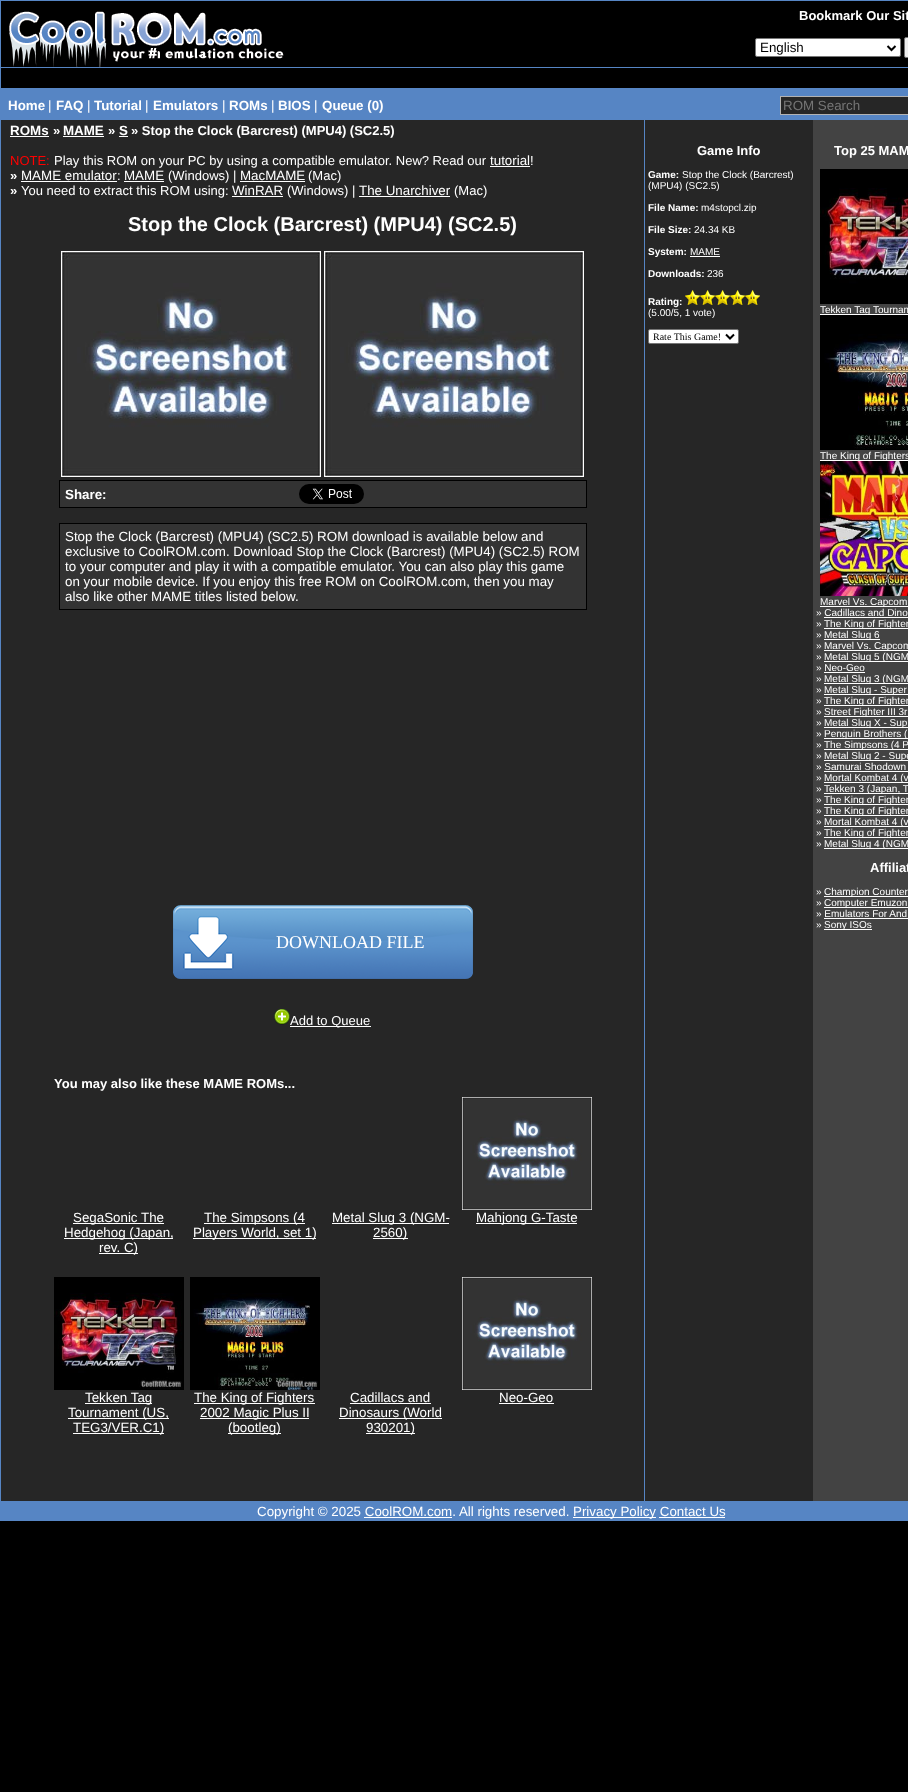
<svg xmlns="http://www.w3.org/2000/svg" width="908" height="1792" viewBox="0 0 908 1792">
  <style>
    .t1 { font: bold 13px Liberation Sans; fill: #fff; }
    .t2 { font: 13.35px Liberation Sans; fill: #000; }
    .t3 { font: bold 13.35px Liberation Sans; fill: #fff; }
    .t4 { font: 13.35px Liberation Sans; fill: #fff; }
    .t5 { font: 13.35px Liberation Sans; fill: #757575; }
    .t6 { font: 13px Liberation Sans; fill: #f00; }
    .t7 { font: 13px Liberation Sans; fill: #fff; }
    .t8 { font: bold 20px Liberation Sans; fill: #fff; }
    .t9 { font: 18px Liberation Serif; fill: #fff; }
    .t10 { font: bold 10px Liberation Sans; fill: #fff; }
    .t11 { font: 10px Liberation Sans; fill: #fff; }
    .t12 { font: 10px Liberation Serif; fill: #000; }
  </style>
  <rect width="100%" height="100%" fill="#000"/>
  <rect x="0" y="0" width="908" height="1521" fill="#5685c4"/>
  <rect x="1" y="1" width="907" height="66" fill="#000"/>
  <image x="9" y="11" width="275" height="56" href="images/1.png"/>
  <text x="799" y="20" class="t1">Bookmark Our Sit</text>
  <rect x="755.5" y="38.5" width="145" height="18" rx="1.5" fill="#fff" stroke="#767676"/>
  <path d="M887.5 46L891.5 50L895.5 46" fill="none" stroke="#000" stroke-width="2"/>
  <text x="760" y="52" class="t2">English</text>
  <rect x="904.5" y="37.5" width="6" height="20" rx="1.5" fill="#efefef" stroke="#767676"/>
  <rect x="1" y="68" width="907" height="20" fill="#000"/>
  <text x="8" y="110" class="t3">Home</text>
  <text x="48" y="110" class="t4">|</text>
  <text x="56" y="110" class="t3">FAQ</text>
  <text x="87" y="110" class="t4">|</text>
  <text x="94" y="110" class="t3">Tutorial</text>
  <text x="145" y="110" class="t4">|</text>
  <text x="153" y="110" class="t3">Emulators</text>
  <text x="222" y="110" class="t4">|</text>
  <text x="229" y="110" class="t3">ROMs</text>
  <text x="271" y="110" class="t4">|</text>
  <text x="278" y="110" class="t3">BIOS</text>
  <text x="314" y="110" class="t4">|</text>
  <text x="322" y="110" class="t3">Queue (0)</text>
  <rect x="780.5" y="96.5" width="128" height="18" fill="#262626" stroke="#b2b2b2"/>
  <text x="783" y="110" class="t5">ROM Search</text>
  <rect x="1" y="120" width="643" height="1381" fill="#262626"/>
  <text x="10" y="135" class="t3">ROMs</text>
  <rect x="10" y="136" width="39" height="1" fill="#fff"/>
  <text x="53" y="135" class="t1">»</text>
  <rect x="63" y="136" width="41" height="1" fill="#fff"/>
  <text x="63" y="135" class="t3">MAME</text>
  <text x="108" y="135" class="t1">»</text>
  <text x="119" y="135" class="t3">S</text>
  <rect x="119" y="136" width="9" height="1" fill="#fff"/>
  <text x="131" y="135" class="t1">» Stop the Clock (Barcrest) (MPU4) (SC2.5)</text>
  <text x="10" y="165" class="t6">NOTE:</text>
  <text x="54" y="165" class="t7">Play this ROM on your PC by using a compatible emulator. New? Read our</text>
  <text x="490" y="165" class="t4">tutorial</text>
  <rect x="490" y="166" width="40" height="1" fill="#fff"/>
  <text x="530" y="165" class="t7">!</text>
  <text x="10" y="180" class="t1">»</text>
  <text x="21" y="180" class="t4">MAME emulator</text>
  <rect x="21" y="181" width="96" height="1" fill="#fff"/>
  <text x="117" y="180" class="t7">:</text>
  <text x="124" y="180" class="t4">MAME</text>
  <rect x="124" y="181" width="40" height="1" fill="#fff"/>
  <text x="168" y="180" class="t7">(Windows) |</text>
  <text x="240" y="180" class="t4">MacMAME</text>
  <rect x="240" y="181" width="65" height="1" fill="#fff"/>
  <text x="308" y="180" class="t7">(Mac)</text>
  <text x="10" y="195" class="t1">»</text>
  <text x="21" y="195" class="t7">You need to extract this ROM using:</text>
  <text x="232" y="195" class="t4">WinRAR</text>
  <rect x="232" y="196" width="51" height="1" fill="#fff"/>
  <text x="287" y="195" class="t7">(Windows) |</text>
  <text x="359" y="195" class="t4">The Unarchiver</text>
  <rect x="359" y="196" width="91" height="1" fill="#fff"/>
  <text x="454" y="195" class="t7">(Mac)</text>
  <text x="128" y="231" class="t8">Stop the Clock (Barcrest) (MPU4) (SC2.5)</text>
  <image x="61" y="251" width="260" height="226" href="images/2.png"/>
  <image x="324" y="251" width="260" height="226" href="images/2.png"/>
  <rect x="59.5" y="480.5" width="527" height="27" fill="#333" stroke="#000"/>
  <text x="65" y="499" class="t3">Share:</text>
  <image x="299" y="484" width="65" height="20" href="images/3.png"/>
  <rect x="59.5" y="523.5" width="527" height="86" fill="#333" stroke="#000"/>
  <text x="65" y="541" class="t4">Stop the Clock (Barcrest) (MPU4) (SC2.5) ROM download is available below and</text>
  <text x="65" y="556" class="t4">exclusive to CoolROM.com. Download Stop the Clock (Barcrest) (MPU4) (SC2.5) ROM</text>
  <text x="65" y="571" class="t4">to your computer and play it with a compatible emulator. You can also play this game</text>
  <text x="65" y="586" class="t4">on your mobile device. If you enjoy this free ROM on CoolROM.com, then you may</text>
  <text x="65" y="601" class="t4">also like other MAME titles listed below.</text>
  <image x="173" y="905" width="300" height="74" href="images/4.png"/>
  <text x="276" y="948" class="t9">DOWNLOAD FILE</text>
  <image x="274" y="1009" width="16" height="16" href="images/5.png"/>
  <rect x="290" y="1026" width="81" height="1" fill="#fff"/>
  <text x="290" y="1025" class="t7">Add to Queue</text>
  <text x="54" y="1088" class="t1">You may also like these MAME ROMs...</text>
  <rect x="73" y="1223" width="91" height="1" fill="#fff"/>
  <text x="73" y="1222" class="t4">SegaSonic The</text>
  <rect x="64" y="1238" width="109" height="1" fill="#fff"/>
  <text x="64" y="1237" class="t4">Hedgehog (Japan,</text>
  <rect x="99" y="1253" width="39" height="1" fill="#fff"/>
  <text x="99" y="1252" class="t4">rev. C)</text>
  <rect x="204" y="1223" width="101" height="1" fill="#fff"/>
  <text x="204" y="1222" class="t4">The Simpsons (4</text>
  <rect x="193" y="1238" width="123" height="1" fill="#fff"/>
  <text x="193" y="1237" class="t4">Players World, set 1)</text>
  <rect x="332" y="1223" width="117" height="1" fill="#fff"/>
  <text x="332" y="1222" class="t4">Metal Slug 3 (NGM-</text>
  <rect x="373" y="1238" width="35" height="1" fill="#fff"/>
  <text x="373" y="1237" class="t4">2560)</text>
  <image x="462" y="1097" width="130" height="113" href="images/6.png"/>
  <rect x="476" y="1223" width="101" height="1" fill="#fff"/>
  <text x="476" y="1222" class="t4">Mahjong G-Taste</text>
  <image x="54" y="1277" width="130" height="113" href="images/7.png"/>
  <rect x="85" y="1403" width="67" height="1" fill="#fff"/>
  <text x="85" y="1402" class="t4">Tekken Tag</text>
  <rect x="68" y="1418" width="101" height="1" fill="#fff"/>
  <text x="68" y="1417" class="t4">Tournament (US,</text>
  <rect x="73" y="1433" width="91" height="1" fill="#fff"/>
  <text x="73" y="1432" class="t4">TEG3/VER.C1)</text>
  <image x="190" y="1277" width="130" height="113" href="images/8.png"/>
  <rect x="194" y="1403" width="121" height="1" fill="#fff"/>
  <text x="194" y="1402" class="t4">The King of Fighters</text>
  <rect x="200" y="1418" width="109" height="1" fill="#fff"/>
  <text x="200" y="1417" class="t4">2002 Magic Plus II</text>
  <rect x="228" y="1433" width="53" height="1" fill="#fff"/>
  <text x="228" y="1432" class="t4">(bootleg)</text>
  <text x="350" y="1402" class="t4">Cadillacs and</text>
  <rect x="350" y="1403" width="81" height="1" fill="#fff"/>
  <rect x="339" y="1418" width="103" height="1" fill="#fff"/>
  <text x="339" y="1417" class="t4">Dinosaurs (World</text>
  <rect x="366" y="1433" width="49" height="1" fill="#fff"/>
  <text x="366" y="1432" class="t4">930201)</text>
  <image x="462" y="1277" width="130" height="113" href="images/6.png"/>
  <text x="499" y="1402" class="t4">Neo-Geo</text>
  <rect x="499" y="1403" width="55" height="1" fill="#fff"/>
  <rect x="645" y="120" width="168" height="20" fill="#262626"/>
  <rect x="813" y="120" width="95" height="20" fill="#434343"/>
  <rect x="645" y="140" width="168" height="1361" fill="#262626"/>
  <text x="697" y="155" class="t1">Game Info</text>
  <text x="648" y="178" class="t10">Game:</text>
  <text x="682" y="178" class="t11">Stop the Clock (Barcrest)</text>
  <text x="648" y="189" class="t11">(MPU4) (SC2.5)</text>
  <text x="648" y="211" class="t10">File Name:</text>
  <text x="701" y="211" class="t11">m4stopcl.zip</text>
  <text x="648" y="233" class="t10">File Size:</text>
  <text x="694" y="233" class="t11">24.34 KB</text>
  <text x="648" y="255" class="t10">System:</text>
  <text x="690" y="255" class="t11">MAME</text>
  <rect x="690" y="256" width="30" height="1" fill="#fff"/>
  <text x="648" y="277" class="t10">Downloads:</text>
  <text x="707" y="277" class="t11">236</text>
  <text x="648" y="305" class="t10">Rating:</text>
  <image x="685" y="290" width="15" height="15" href="images/9.png"/>
  <image x="700" y="290" width="15" height="15" href="images/9.png"/>
  <image x="715" y="290" width="15" height="15" href="images/9.png"/>
  <image x="730" y="290" width="15" height="15" href="images/9.png"/>
  <image x="745" y="290" width="15" height="15" href="images/9.png"/>
  <text x="648" y="316" class="t11">(5.00/5, 1 vote)</text>
  <rect x="648.5" y="329.5" width="90" height="14" rx="1.5" fill="#fff" stroke="#767676"/>
  <path d="M726 334.5L730 338.5L734 334.5" fill="none" stroke="#000" stroke-width="2"/>
  <text x="653" y="340" class="t12">Rate This Game!</text>
  <rect x="813" y="140" width="95" height="1361" fill="#434343"/>
  <text x="834" y="155" class="t1">Top 25 MAM</text>
  <image x="820" y="169" width="88" height="135" href="images/10.png"/>
  <rect x="820" y="314" width="88" height="1" fill="#fff"/>
  <text x="820" y="313" class="t11">Tekken Tag Tournam</text>
  <image x="820" y="315" width="88" height="135" href="images/11.png"/>
  <rect x="820" y="460" width="88" height="1" fill="#fff"/>
  <text x="820" y="459" class="t11">The King of Fighters</text>
  <image x="820" y="461" width="88" height="135" href="images/12.png"/>
  <rect x="820" y="606" width="88" height="1" fill="#fff"/>
  <text x="820" y="605" class="t11">Marvel Vs. Capcom</text>
  <text x="816" y="616" class="t11">» Cadillacs and Dino</text>
  <rect x="824" y="617" width="84" height="1" fill="#fff"/>
  <text x="816" y="627" class="t11">»</text>
  <rect x="824" y="628" width="84" height="1" fill="#fff"/>
  <text x="824" y="627" class="t11">The King of Fighter</text>
  <text x="816" y="638" class="t11">»</text>
  <rect x="824" y="639" width="56" height="1" fill="#fff"/>
  <text x="824" y="638" class="t11">Metal Slug 6</text>
  <text x="816" y="649" class="t11">»</text>
  <rect x="824" y="650" width="84" height="1" fill="#fff"/>
  <text x="824" y="649" class="t11">Marvel Vs. Capcom</text>
  <text x="816" y="660" class="t11">»</text>
  <rect x="824" y="661" width="84" height="1" fill="#fff"/>
  <text x="824" y="660" class="t11">Metal Slug 5 (NGM</text>
  <text x="816" y="671" class="t11">» Neo-Geo</text>
  <rect x="824" y="672" width="41" height="1" fill="#fff"/>
  <text x="816" y="682" class="t11">»</text>
  <rect x="824" y="683" width="84" height="1" fill="#fff"/>
  <text x="824" y="682" class="t11">Metal Slug 3 (NGM</text>
  <text x="816" y="693" class="t11">»</text>
  <rect x="824" y="694" width="84" height="1" fill="#fff"/>
  <text x="824" y="693" class="t11">Metal Slug - Super</text>
  <text x="816" y="704" class="t11">»</text>
  <rect x="824" y="705" width="84" height="1" fill="#fff"/>
  <text x="824" y="704" class="t11">The King of Fighter</text>
  <text x="816" y="715" class="t11">»</text>
  <rect x="824" y="716" width="84" height="1" fill="#fff"/>
  <text x="824" y="715" class="t11">Street Fighter III 3r</text>
  <text x="816" y="726" class="t11">»</text>
  <rect x="824" y="727" width="84" height="1" fill="#fff"/>
  <text x="824" y="726" class="t11">Metal Slug X - Sup</text>
  <text x="816" y="737" class="t11">»</text>
  <rect x="824" y="738" width="84" height="1" fill="#fff"/>
  <text x="824" y="737" class="t11">Penguin Brothers (</text>
  <text x="816" y="748" class="t11">»</text>
  <rect x="824" y="749" width="84" height="1" fill="#fff"/>
  <text x="824" y="748" class="t11">The Simpsons (4 P</text>
  <text x="816" y="759" class="t11">»</text>
  <rect x="824" y="760" width="84" height="1" fill="#fff"/>
  <text x="824" y="759" class="t11">Metal Slug 2 - Supe</text>
  <text x="816" y="770" class="t11">» Samurai Shodown</text>
  <rect x="824" y="771" width="84" height="1" fill="#fff"/>
  <text x="816" y="781" class="t11">»</text>
  <rect x="824" y="782" width="84" height="1" fill="#fff"/>
  <text x="824" y="781" class="t11">Mortal Kombat 4 (v</text>
  <text x="816" y="792" class="t11">»</text>
  <rect x="824" y="793" width="84" height="1" fill="#fff"/>
  <text x="824" y="792" class="t11">Tekken 3 (Japan, T</text>
  <text x="816" y="803" class="t11">»</text>
  <rect x="824" y="804" width="84" height="1" fill="#fff"/>
  <text x="824" y="803" class="t11">The King of Fighter</text>
  <text x="816" y="814" class="t11">»</text>
  <rect x="824" y="815" width="84" height="1" fill="#fff"/>
  <text x="824" y="814" class="t11">The King of Fighter</text>
  <text x="816" y="825" class="t11">»</text>
  <rect x="824" y="826" width="84" height="1" fill="#fff"/>
  <text x="824" y="825" class="t11">Mortal Kombat 4 (v</text>
  <text x="816" y="836" class="t11">»</text>
  <rect x="824" y="837" width="84" height="1" fill="#fff"/>
  <text x="824" y="836" class="t11">The King of Fighter</text>
  <text x="816" y="847" class="t11">»</text>
  <rect x="824" y="848" width="84" height="1" fill="#fff"/>
  <text x="824" y="847" class="t11">Metal Slug 4 (NGM</text>
  <text x="870" y="872" class="t1">Affiliat</text>
  <text x="816" y="895" class="t11">»</text>
  <rect x="824" y="896" width="84" height="1" fill="#fff"/>
  <text x="824" y="895" class="t11">Champion Counter</text>
  <text x="816" y="906" class="t11">»</text>
  <rect x="824" y="907" width="84" height="1" fill="#fff"/>
  <text x="824" y="906" class="t11">Computer Emuzon</text>
  <text x="816" y="917" class="t11">» Emulators For And</text>
  <rect x="824" y="918" width="84" height="1" fill="#fff"/>
  <text x="816" y="928" class="t11">»</text>
  <rect x="824" y="929" width="48" height="1" fill="#fff"/>
  <text x="824" y="928" class="t11">Sony ISOs</text>
  <text x="257" y="1516" class="t4">Copyright © 2025 CoolROM.com. All rights reserved.</text>
  <rect x="573" y="1517" width="83" height="1" fill="#fff"/>
  <text x="573" y="1516" class="t4">Privacy Policy Contact Us</text>
  <rect x="364" y="1517" width="88" height="1" fill="#fff"/>
  <rect x="659" y="1517" width="66" height="1" fill="#fff"/>
</svg>
